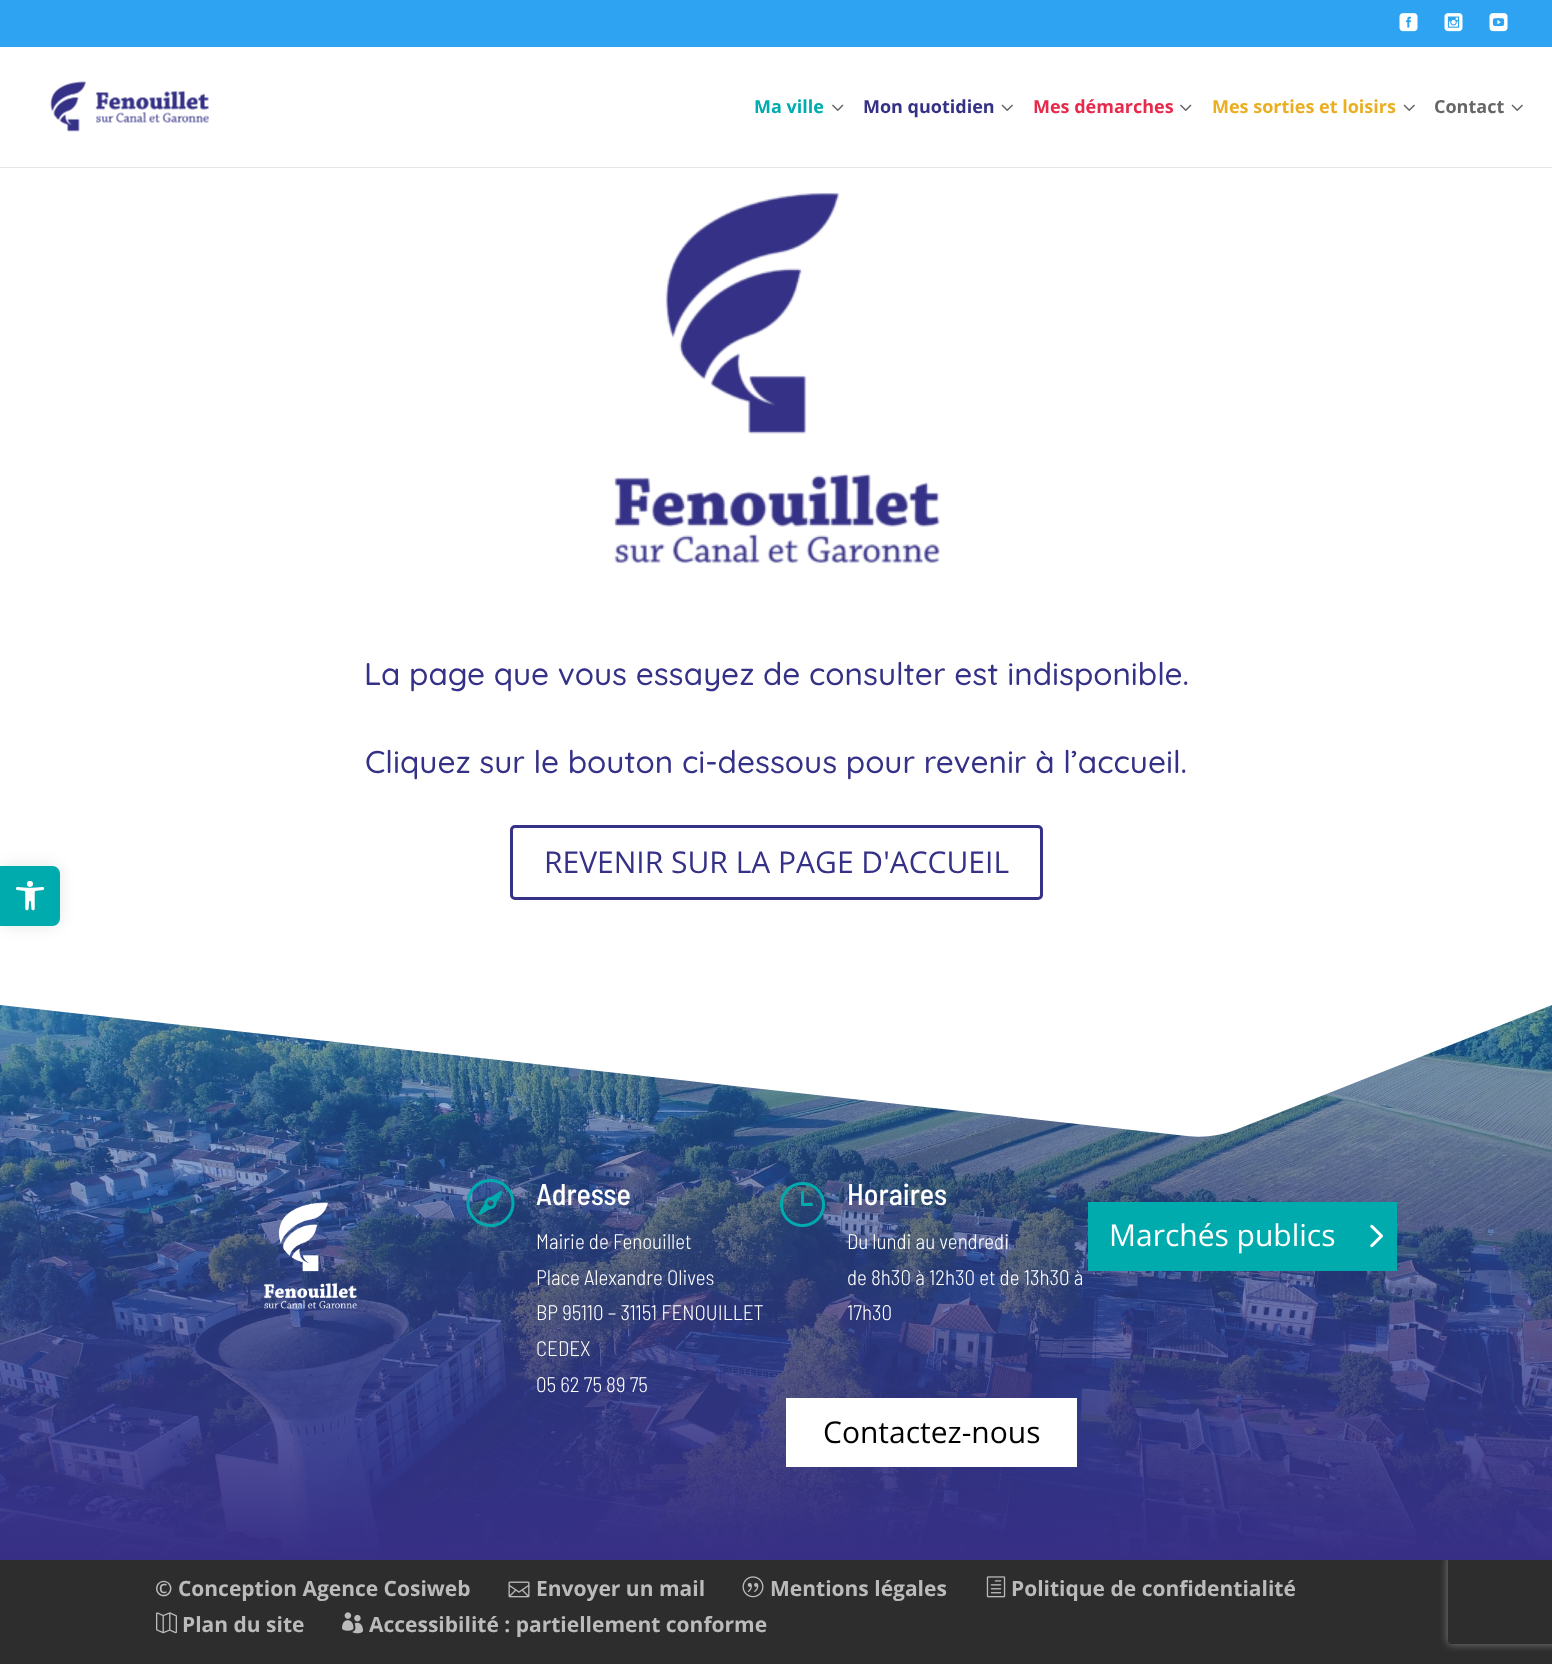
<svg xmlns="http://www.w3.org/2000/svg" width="1552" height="1664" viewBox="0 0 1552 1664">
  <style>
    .t1 { font: bold 18px Open Sans; fill: #00abae; }
    .t2 { font: bold 18px Open Sans; fill: #353186; }
    .t3 { font: bold 18px Open Sans; fill: #e72a4b; }
    .t4 { font: bold 18px Open Sans; fill: #ebae23; }
    .t5 { font: bold 18px Open Sans; fill: #666; }
    .t6 { font: 500 31.5px Quicksand; fill: #353186; }
    .t7 { font: 30px Open Sans; fill: #353186; }
    .t8 { font: 500 30px Barlow Semi Condensed; fill: #fff; }
    .t9 { font: 300 21px Barlow Semi Condensed; fill: #fff; }
    .t10 { font: 30px Open Sans; fill: #000; }
    .t11 { font: 30px Open Sans; fill: #fff; }
    .t12 { font: bold 21px Open Sans; fill: #bbb; }
  </style>
  <defs>
    <clipPath id="clip1"><path d="M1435 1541H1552V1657H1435ZM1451 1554H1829C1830.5 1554 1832 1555.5 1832 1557V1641C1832 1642.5 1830.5 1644 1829 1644H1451C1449.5 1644 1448 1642.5 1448 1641V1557C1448 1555.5 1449.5 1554 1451 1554Z" clip-rule="evenodd"/></clipPath>
  </defs>
  <rect width="100%" height="100%" fill="#fff"/>
  <rect x="0" y="866" width="60" height="60" rx="8" fill="#0000001a" filter="blur(7.5px)"/>
  <path d="M0 866H52C56.5 866 60 869.5 60 874V918C60 922.5 56.5 926 52 926H0Z" fill="#00abae"/>
  <image x="16" y="881" width="29" height="30" href="images/1.png"/>
  <rect x="0" y="0" width="1552" height="47" fill="#2ea3f2"/>
  <image x="1399" y="13" width="19" height="19" href="images/2.png"/>
  <image x="1444" y="13" width="19" height="19" href="images/3.png"/>
  <image x="1489" y="13" width="19" height="19" href="images/4.png"/>
  <path d="M0 166V168H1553V48H1552V166Z" fill="#e6e6e6"/>
  <rect x="0" y="166" width="1552" height="1" fill="#fff"/>
  <image x="50" y="81" width="159" height="51" href="images/5.png"/>
  <text x="754" y="113" class="t1">Ma ville</text>
  <image x="832" y="104" width="12" height="7" href="images/6.png"/>
  <text x="863" y="113" class="t2">Mon quotidien</text>
  <image x="1001" y="104" width="12" height="7" href="images/7.png"/>
  <text x="1033" y="113" class="t3">Mes démarches</text>
  <image x="1180" y="104" width="12" height="7" href="images/6.png"/>
  <text x="1212" y="113" class="t4">Mes sorties et loisirs</text>
  <image x="1403" y="104" width="12" height="7" href="images/7.png"/>
  <text x="1434" y="113" class="t5">Contact</text>
  <image x="1511" y="104" width="12" height="7" href="images/7.png"/>
  <image x="614" y="192" width="326" height="372" href="images/8.png"/>
  <text x="364" y="685" class="t6">La page que vous essayez de consulter est indisponible.</text>
  <text x="365" y="773" class="t6">Cliquez sur le bouton ci-dessous pour revenir à l’accueil.</text>
  <rect x="511.5" y="826.5" width="530" height="72" rx="3.5" fill="none" stroke="#353186" stroke-width="3"/>
  <text x="544" y="873" class="t7">REVENIR SUR LA PAGE D'ACCUEIL</text>
  <rect x="0" y="1560" width="1552" height="104" fill="#2d2d2d"/>
  <g clip-path="url(#clip1)">
    <rect x="1448" y="1554" width="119" height="90" rx="3" fill="#808080" filter="blur(4px)"/>
  </g>
  <image x="0" y="1005" width="1552" height="555" href="images/9.png"/>
  <path d="M1187 1136L0 1005H1552L1235 1130C1220 1136 1203 1138 1187 1136Z" fill="#fff"/>
  <image x="264" y="1202" width="93" height="107" href="images/10.png"/>
  <image x="466" y="1179" width="49" height="48" href="images/11.png"/>
  <text x="536" y="1205" class="t8">Adresse</text>
  <text x="536" y="1249" class="t9">Mairie de Fenouillet</text>
  <text x="536" y="1285" class="t9">Place Alexandre Olives</text>
  <text x="536" y="1320" class="t9">BP 95110 – 31151 FENOUILLET</text>
  <text x="536" y="1356" class="t9">CEDEX</text>
  <text x="536" y="1392" class="t9">05 62 75 89 75</text>
  <image x="780" y="1182" width="45" height="45" href="images/12.png"/>
  <text x="847" y="1205" class="t8">Horaires</text>
  <text x="847" y="1249" class="t9">Du lundi au vendredi</text>
  <text x="847" y="1285" class="t9">de 8h30 à 12h30 et de 13h30 à</text>
  <text x="847" y="1320" class="t9">17h30</text>
  <rect x="786" y="1398" width="291" height="69" fill="#fff"/>
  <text x="823" y="1443" class="t10">Contactez-nous</text>
  <rect x="1088" y="1202" width="309" height="69" fill="#00abae"/>
  <text x="1109" y="1246" class="t11">Marchés publics</text>
  <image x="1370" y="1224" width="13" height="24" href="images/13.png"/>
  <text x="155" y="1596" class="t12">© Conception Agence Cosiweb</text>
  <image x="508" y="1581" width="22" height="17" href="images/14.png"/>
  <text x="536" y="1596" class="t12">Envoyer un mail</text>
  <image x="742" y="1576" width="22" height="22" href="images/15.png"/>
  <text x="770" y="1596" class="t12">Mentions légales</text>
  <image x="986" y="1576" width="20" height="22" href="images/16.png"/>
  <text x="1011" y="1596" class="t12">Politique de confidentialité</text>
  <image x="156" y="1612" width="21" height="22" href="images/17.png"/>
  <text x="182" y="1632" class="t12">Plan du site</text>
  <image x="342" y="1612" width="21" height="22" href="images/18.png"/>
  <text x="369" y="1632" class="t12">Accessibilité : partiellement conforme</text>
</svg>
